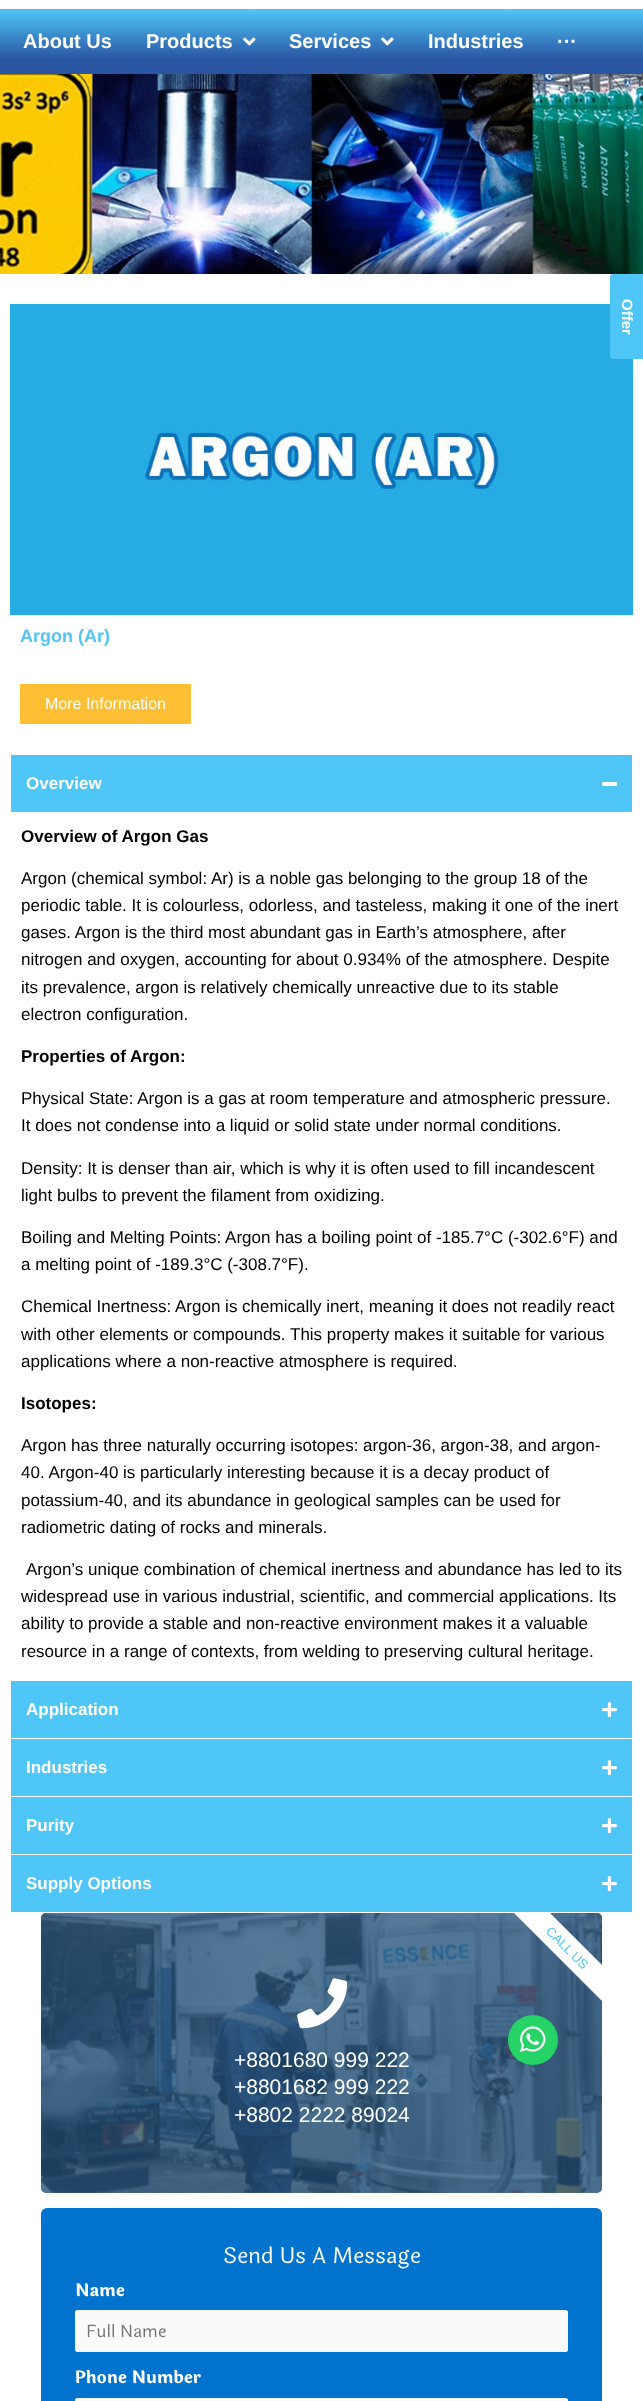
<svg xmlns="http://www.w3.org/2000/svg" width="643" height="2401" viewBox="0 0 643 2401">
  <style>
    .t1 { font: bold 20px Liberation Sans; fill: #fff; }
    .t2 { font: bold 15px Liberation Sans; fill: #fff; }
    .t3 { font: bold 18px Liberation Sans; fill: #4fc6f8; }
    .t4 { font: 16px Liberation Sans; fill: #fff; }
    .t5 { font: bold 17px Liberation Sans; fill: #fff; }
    .t6 { font: bold 17px Liberation Sans; fill: #000; }
    .t7 { font: 17px Liberation Sans; fill: #000; }
    .t8 { font: 13px Liberation Sans; fill: #4fc6f8; }
    .t9 { font: 21px Liberation Sans; fill: #fff; }
    .t10 { font: 22px Laila; fill: #fff; }
    .t11 { font: bold 17px Laila; fill: #fff; }
    .t12 { font: 17px Laila; fill: #757575; }
  </style>
  <defs>
    <linearGradient id="g1" gradientUnits="userSpaceOnUse" x1="322" y1="74" x2="322" y2="9"><stop offset="0.22" stop-color="#2955a2"/><stop offset="1" stop-color="#4fc6f8"/></linearGradient>
  </defs>
  <rect width="100%" height="100%" fill="#fff"/>
  <rect x="0" y="9" width="643" height="65" fill="url(#g1)"/>
  <text x="23" y="48" class="t1">About Us</text>
  <text x="146" y="48" class="t1">Products</text>
  <image x="243" y="37" width="13" height="9" href="images/1.png"/>
  <text x="289" y="48" class="t1">Services</text>
  <image x="381" y="37" width="13" height="9" href="images/1.png"/>
  <text x="428" y="48" class="t1">Industries</text>
  <text x="557" y="48" class="t1">···</text>
  <image x="10" y="304" width="623" height="311" href="images/4.png"/>
  <path d="M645 277V356C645 358 643 359 642 359H613C611 359 610 358 610 356V277C610 275 611 274 613 274H642C643 274 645 275 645 277Z" fill="#4fc6f8"/>
  <text x="622" y="299" transform="rotate(90 622 299)" class="t2">Offer</text>
  <image x="41" y="1913" width="561" height="280" href="images/6.png"/>
  <rect x="41" y="1913" width="561" height="280" rx="5" fill="#235179c4"/>
  <circle cx="533" cy="2040" r="25" fill="#25d366"/>
  <image x="520" y="2026" width="26" height="26" href="images/2.png"/>
  <image x="0" y="74" width="643" height="200" href="images/3.png"/>
  <text x="20" y="642" class="t3">Argon (Ar)</text>
  <rect x="20" y="684" width="171" height="40" fill="#ffbf35"/>
  <text x="45" y="709" class="t4">More Information</text>
  <rect x="11" y="755" width="621" height="57" fill="#4fc6f8"/>
  <text x="26" y="789" class="t5">Overview</text>
  <rect x="602" y="782" width="15" height="4" fill="#fff"/>
  <text x="21" y="842" class="t6">Overview of Argon Gas</text>
  <text x="21" y="884" class="t7">Argon (chemical symbol: Ar) is a noble gas belonging to the group 18 of the</text>
  <text x="21" y="911" class="t7">periodic table. It is colourless, odorless, and tasteless, making it one of the inert</text>
  <text x="21" y="938" class="t7">gases. Argon is the third most abundant gas in Earth’s atmosphere, after</text>
  <text x="21" y="965" class="t7">nitrogen and oxygen, accounting for about 0.934% of the atmosphere. Despite</text>
  <text x="21" y="993" class="t7">its prevalence, argon is relatively chemically unreactive due to its stable</text>
  <text x="21" y="1020" class="t7">electron configuration.</text>
  <text x="21" y="1062" class="t6">Properties of Argon:</text>
  <text x="21" y="1104" class="t7">Physical State: Argon is a gas at room temperature and atmospheric pressure.</text>
  <text x="21" y="1131" class="t7">It does not condense into a liquid or solid state under normal conditions.</text>
  <text x="21" y="1174" class="t7">Density: It is denser than air, which is why it is often used to fill incandescent</text>
  <text x="21" y="1201" class="t7">light bulbs to prevent the filament from oxidizing.</text>
  <text x="21" y="1243" class="t7">Boiling and Melting Points: Argon has a boiling point of -185.7°C (-302.6°F) and</text>
  <text x="21" y="1270" class="t7">a melting point of -189.3°C (-308.7°F).</text>
  <text x="21" y="1312" class="t7">Chemical Inertness: Argon is chemically inert, meaning it does not readily react</text>
  <text x="21" y="1340" class="t7">with other elements or compounds. This property makes it suitable for various</text>
  <text x="21" y="1367" class="t7">applications where a non-reactive atmosphere is required.</text>
  <text x="21" y="1409" class="t6">Isotopes:</text>
  <text x="21" y="1451" class="t7">Argon has three naturally occurring isotopes: argon-36, argon-38, and argon-</text>
  <text x="21" y="1478" class="t7">40. Argon-40 is particularly interesting because it is a decay product of</text>
  <text x="21" y="1506" class="t7">potassium-40, and its abundance in geological samples can be used for</text>
  <text x="21" y="1533" class="t7">radiometric dating of rocks and minerals.</text>
  <text x="26" y="1575" class="t7">Argon’s unique combination of chemical inertness and abundance has led to its</text>
  <text x="21" y="1602" class="t7">widespread use in various industrial, scientific, and commercial applications. Its</text>
  <text x="21" y="1629" class="t7">ability to provide a stable and non-reactive environment makes it a valuable</text>
  <text x="21" y="1657" class="t7">resource in a range of contexts, from welding to preserving cultural heritage.</text>
  <rect x="11" y="1681" width="621" height="57" fill="#4fc6f8"/>
  <text x="26" y="1715" class="t5">Application</text>
  <image x="602" y="1702" width="15" height="16" href="images/5.png"/>
  <rect x="11" y="1739" width="621" height="57" fill="#4fc6f8"/>
  <text x="26" y="1773" class="t5">Industries</text>
  <image x="602" y="1760" width="15" height="16" href="images/5.png"/>
  <rect x="11" y="1797" width="621" height="57" fill="#4fc6f8"/>
  <text x="26" y="1831" class="t5">Purity</text>
  <image x="602" y="1818" width="15" height="16" href="images/5.png"/>
  <rect x="11" y="1855" width="621" height="57" fill="#4fc6f8"/>
  <text x="26" y="1889" class="t5">Supply Options</text>
  <image x="602" y="1876" width="15" height="16" href="images/5.png"/>
  <path d="M602 2001L514 1913H550L602 1965Z" fill="#fff"/>
  <text x="545" y="1932" transform="rotate(45 545 1932)" class="t8">CALL US</text>
  <image x="297" y="1978" width="51" height="51" href="images/7.png"/>
  <text x="234" y="2067" class="t9">+8801680 999 222</text>
  <text x="234" y="2094" class="t9">+8801682 999 222</text>
  <text x="234" y="2122" class="t9">+8802 2222 89024</text>
  <rect x="41" y="2208" width="561" height="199" rx="6" fill="#0073cf"/>
  <text x="223" y="2263" class="t10">Send Us A Message</text>
  <text x="75" y="2296" class="t11">Name</text>
  <rect x="75.5" y="2310.5" width="492" height="41" rx="1.5" fill="#fafafa" stroke="#f2f5f7"/>
  <text x="86" y="2337" class="t12">Full Name</text>
  <text x="75" y="2383" class="t11">Phone Number</text>
  <rect x="75.5" y="2398.5" width="492" height="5" rx="1.5" fill="#fafafa" stroke="#f2f5f7"/>
</svg>
